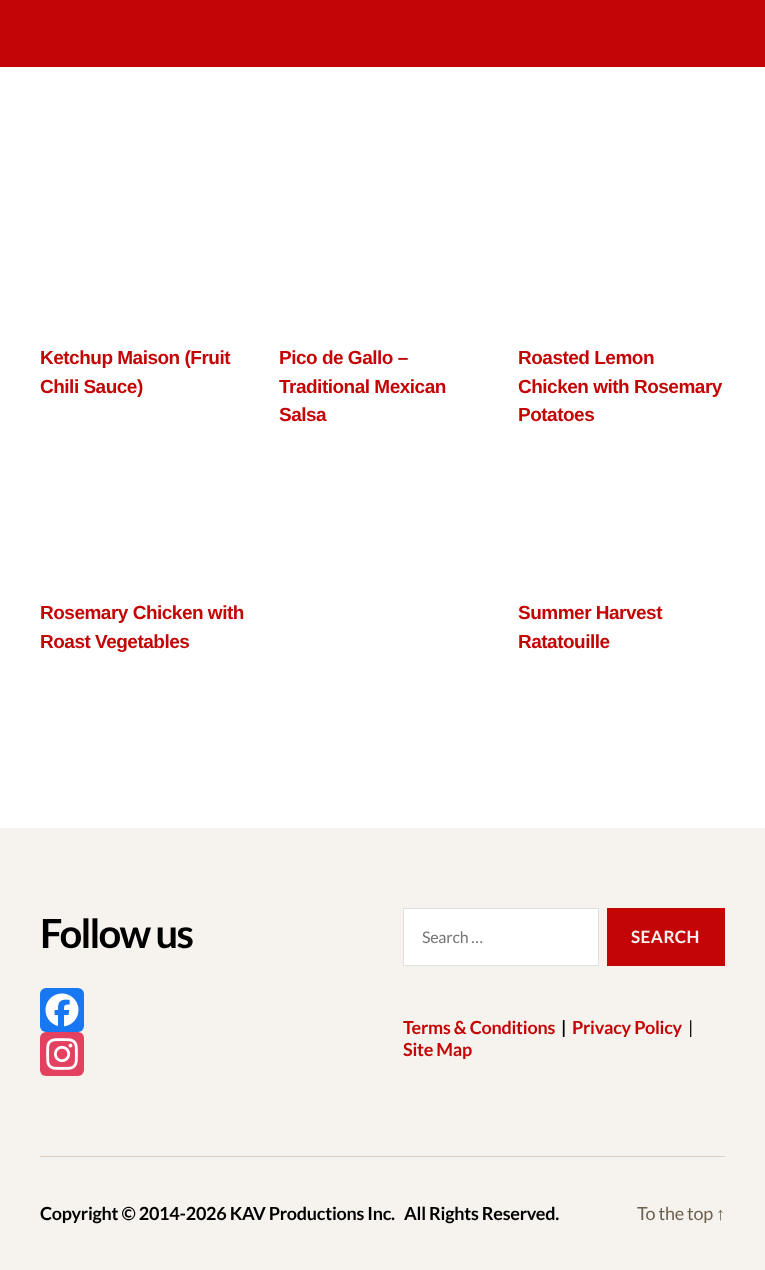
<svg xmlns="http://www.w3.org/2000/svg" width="765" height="1270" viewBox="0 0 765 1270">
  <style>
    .t1 { font: bold 19px Liberation Sans; letter-spacing: -0.5px; fill: #c40505; }
    .t2 { font: bold 40px Lato; letter-spacing: -1.75px; fill: #000; }
    .t3 { font: 16px Lato; letter-spacing: -0.25px; fill: #757575; }
    .t4 { font: bold 17px Lato; letter-spacing: 0.5px; fill: #f6f2ee; }
    .t5 { font: bold 18px Lato; letter-spacing: -0.25px; fill: #c40505; }
    .t6 { font: bold 18px Lato; letter-spacing: -0.25px; fill: #000; }
    .t7 { font: 18px Lato; letter-spacing: -0.25px; fill: #000; }
    .t8 { font: 18px Lato; letter-spacing: -0.25px; fill: #6c614f; }
    .t9 { font: 18px Liberation Sans; letter-spacing: -0.25px; fill: #6c614f; }
  </style>
  <rect width="100%" height="100%" fill="#fff"/>
  <rect x="0" y="0" width="765" height="67" fill="#c40505"/>
  <text x="40" y="364" class="t1">Ketchup Maison (Fruit</text>
  <text x="40" y="393" class="t1">Chili Sauce)</text>
  <text x="279" y="364" class="t1">Pico de Gallo –</text>
  <text x="279" y="393" class="t1">Traditional Mexican</text>
  <text x="279" y="421" class="t1">Salsa</text>
  <text x="518" y="364" class="t1">Roasted Lemon</text>
  <text x="518" y="393" class="t1">Chicken with Rosemary</text>
  <text x="518" y="421" class="t1">Potatoes</text>
  <text x="40" y="619" class="t1">Rosemary Chicken with</text>
  <text x="40" y="648" class="t1">Roast Vegetables</text>
  <text x="518" y="619" class="t1">Summer Harvest</text>
  <text x="518" y="648" class="t1">Ratatouille</text>
  <rect x="0" y="828" width="765" height="442" fill="#f6f2ee"/>
  <rect x="40" y="1156" width="685" height="1" fill="#dacfc2"/>
  <text x="40" y="948" class="t2">Follow us</text>
  <rect x="40" y="988" width="44" height="44" rx="6" fill="#1877f2"/>
  <image x="45" y="993" width="34" height="34" href="images/1.png"/>
  <rect x="40" y="1032" width="44" height="44" rx="6" fill="#e4405f"/>
  <image x="46" y="1038" width="32" height="32" href="images/2.png"/>
  <rect x="403.5" y="908.5" width="195" height="57" fill="#fff" stroke="#dedfdf"/>
  <text x="422" y="943" class="t3">Search …</text>
  <rect x="607" y="908" width="118" height="58" fill="#c40505"/>
  <text x="631" y="943" class="t4">SEARCH</text>
  <text x="403" y="1034" class="t5">Terms &amp; Conditions</text>
  <text x="561" y="1034" class="t6">|</text>
  <text x="572" y="1034" class="t5">Privacy Policy</text>
  <text x="688" y="1034" class="t7">|</text>
  <text x="403" y="1056" class="t5">Site Map</text>
  <text x="40" y="1220" class="t6">Copyright © 2014-2026 KAV Productions Inc.</text>
  <text x="404" y="1220" class="t6">All Rights Reserved.</text>
  <text x="637" y="1220" class="t8">To the top</text>
  <text x="716" y="1220" class="t9">↑</text>
</svg>
